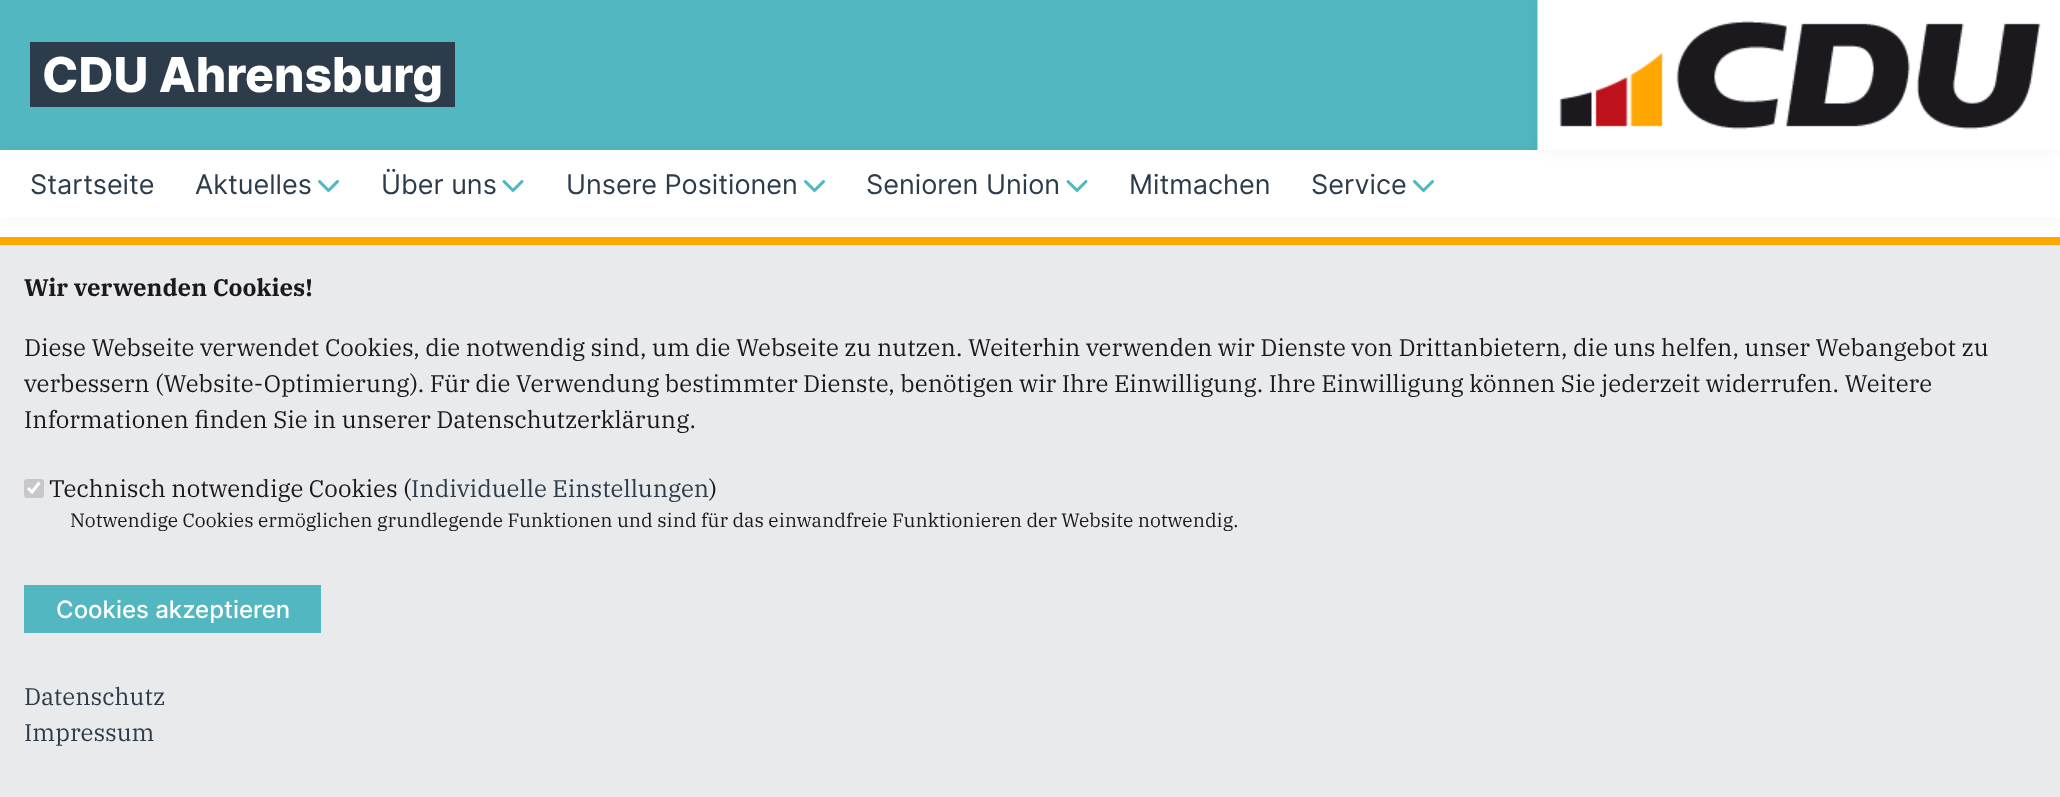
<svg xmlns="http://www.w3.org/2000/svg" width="2060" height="797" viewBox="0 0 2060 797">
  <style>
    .t1 { font: 800 48px Inter; fill: #fff; }
    .t2 { font: 27px Inter; fill: #2d3c4b; }
    .t3 { font: bold 24px IBM Plex Serif; fill: #1b191d; }
    .t4 { font: 24px IBM Plex Serif; fill: #1b191d; }
    .t5 { font: 24px IBM Plex Serif; fill: #2d3c4b; }
    .t6 { font: 19.2px IBM Plex Serif; fill: #1b191d; }
    .t7 { font: 500 24px Inter; fill: #fff; }
  </style>
  <rect width="100%" height="100%" fill="#fff"/>
  <rect x="0" y="0" width="1538" height="150" fill="#52b7c1"/>
  <rect x="30" y="42" width="425" height="65" fill="#2d3c4b"/>
  <text x="42" y="92" class="t1">CDU Ahrensburg</text>
  <rect x="0" y="150" width="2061" height="68" fill="#0000000d" filter="blur(7.5px)"/>
  <rect x="0" y="150" width="2060" height="68" fill="#fff"/>
  <rect x="1538" y="0" width="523" height="150" fill="#0000000d" filter="blur(7.5px)"/>
  <image x="1537" y="0" width="523" height="150" href="images/1.png"/>
  <text x="30" y="194" class="t2">Startseite</text>
  <text x="195" y="194" class="t2">Aktuelles</text>
  <image x="318" y="180" width="21" height="12" href="images/2.png"/>
  <text x="381" y="194" class="t2">Über uns</text>
  <image x="502" y="180" width="22" height="12" href="images/3.png"/>
  <text x="566" y="194" class="t2">Unsere Positionen</text>
  <image x="804" y="180" width="21" height="12" href="images/2.png"/>
  <text x="866" y="194" class="t2">Senioren Union</text>
  <image x="1066" y="180" width="22" height="12" href="images/3.png"/>
  <text x="1129" y="194" class="t2">Mitmachen</text>
  <text x="1311" y="194" class="t2">Service</text>
  <image x="1413" y="180" width="21" height="12" href="images/2.png"/>
  <rect x="0" y="245" width="2060" height="552" fill="#e9eaec"/>
  <rect x="0" y="237" width="2060" height="8" fill="#ffa600"/>
  <text x="24" y="296" class="t3">Wir verwenden Cookies!</text>
  <text x="24" y="356" class="t4">Diese Webseite verwendet Cookies, die notwendig sind, um die Webseite zu nutzen. Weiterhin verwenden wir Dienste von Drittanbietern, die uns helfen, unser Webangebot zu</text>
  <text x="24" y="392" class="t4">verbessern (Website-Optimierung). Für die Verwendung bestimmter Dienste, benötigen wir Ihre Einwilligung. Ihre Einwilligung können Sie jederzeit widerrufen. Weitere</text>
  <text x="24" y="428" class="t4">Informationen finden Sie in unserer Datenschutzerklärung.</text>
  <rect x="24" y="479" width="20" height="19" rx="3" fill="#c7c7c9"/>
  <path d="M28 488L32 492L39.5 482.5" fill="none" stroke="#fff" stroke-width="3.1"/>
  <text x="49" y="497" class="t4">Technisch notwendige Cookies (</text>
  <text x="411" y="497" class="t5">Individuelle Einstellungen</text>
  <text x="709" y="497" class="t4">)</text>
  <text x="70" y="527" class="t6">Notwendige Cookies ermöglichen grundlegende Funktionen und sind für das einwandfreie Funktionieren der Website notwendig.</text>
  <rect x="24" y="585" width="297" height="48" fill="#52b7c1"/>
  <text x="56" y="618" class="t7">Cookies akzeptieren</text>
  <text x="24" y="705" class="t5">Datenschutz</text>
  <text x="24" y="741" class="t5">Impressum</text>
</svg>
